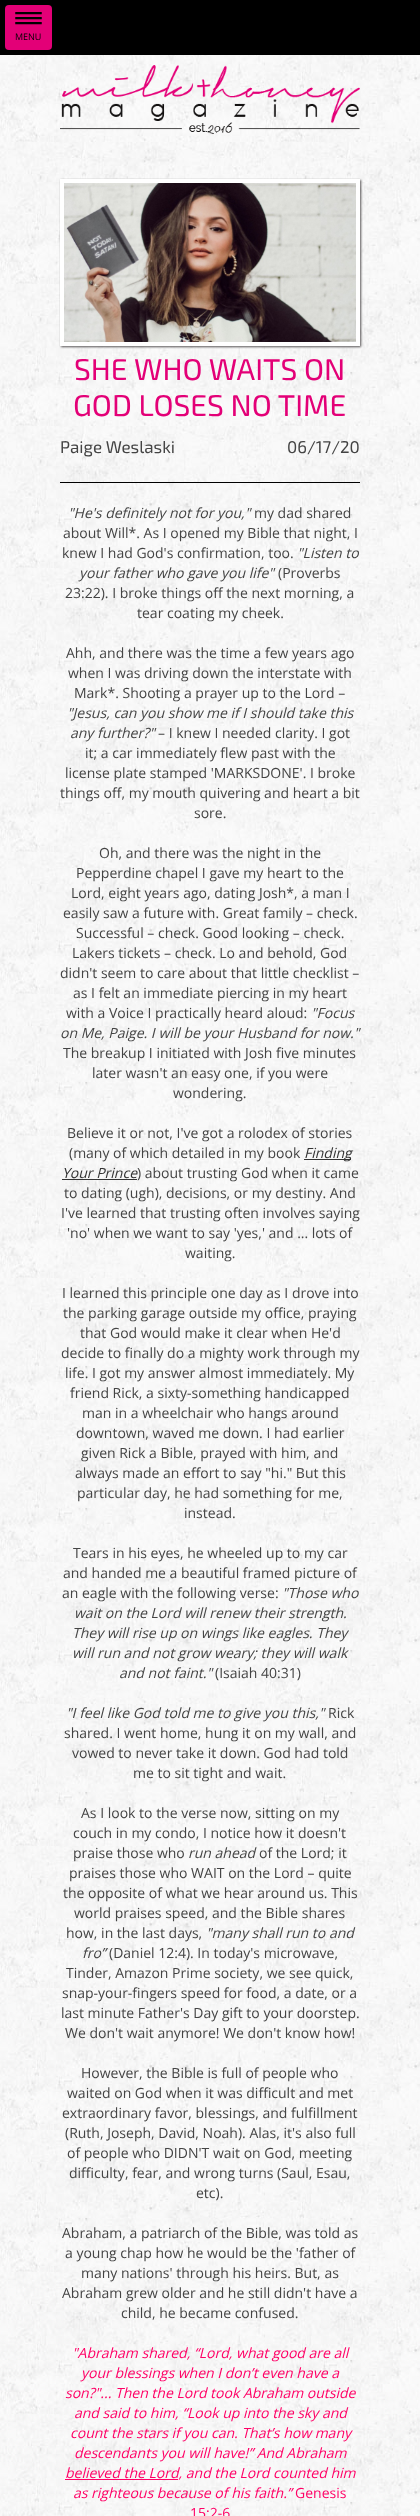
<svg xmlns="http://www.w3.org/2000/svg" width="420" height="2516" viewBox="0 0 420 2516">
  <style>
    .t1 { font: 9px Open Sans; fill: #000; }
    .t2 { font: 30px 'Exo 2'; fill: #e30077; }
    .t3 { font: 17px 'Exo 2'; fill: #444; }
    .t4 { font: italic 14px Open Sans; fill: #444; }
    .t5 { font: 14px Open Sans; fill: #444; }
    .t6 { font: italic 14px Open Sans; fill: #333; }
    .t7 { font: italic 14px Open Sans; fill: #f06; }
    .t8 { font: 14px Open Sans; fill: #f06; }
  </style>
  <rect width="100%" height="100%" fill="#fff"/>
  <image x="0" y="55" width="420" height="2461" href="images/1.png"/>
  <rect x="0" y="0" width="420" height="55" fill="#000"/>
  <rect x="5" y="5" width="47" height="45" rx="4" fill="#e30077"/>
  <path d="M15 13.5C15 14 15 15 16 15H41C42 15 42 14 42 13.5L41 14H16Z" fill="#aa0059"/>
  <rect x="15" y="12" width="27" height="2" rx="1" fill="#000"/>
  <path d="M15 18.5C15 19 15 20 16 20H41C42 20 42 19 42 18.5L41 19H16Z" fill="#aa0059"/>
  <rect x="15" y="17" width="27" height="2" rx="1" fill="#000"/>
  <path d="M15 23.5C15 24 15 25 16 25H41C42 25 42 24 42 23.5L41 24H16Z" fill="#aa0059"/>
  <rect x="15" y="22" width="27" height="2" rx="1" fill="#000"/>
  <text x="15" y="40" class="t1">MENU</text>
  <image x="60" y="65" width="300" height="69" href="images/2.png"/>
  <rect x="61" y="180" width="300" height="167" fill="#565354" filter="blur(1px)"/>
  <rect x="62" y="181" width="296" height="163" fill="none" stroke="#fff" stroke-width="4"/>
  <image x="64" y="183" width="292" height="159" href="images/3.png"/>
  <text x="74" y="380" class="t2">SHE WHO WAITS ON</text>
  <text x="73" y="416" class="t2">GOD LOSES NO TIME</text>
  <text x="60" y="453" class="t3">Paige Weslaski</text>
  <text x="287" y="453" class="t3">06/17/20</text>
  <rect x="60" y="482" width="300" height="1" fill="#000"/>
  <text x="68" y="518" class="t4">"He's definitely not for you,"</text>
  <text x="254" y="518" class="t5">my dad shared</text>
  <text x="63" y="538" class="t5">about Will*. As I opened my Bible that night, I</text>
  <text x="62" y="558" class="t5">knew I had God's confirmation, too.</text>
  <text x="297" y="558" class="t4">"Listen to</text>
  <text x="79" y="578" class="t4">your father who gave you life"</text>
  <text x="278" y="578" class="t5">(Proverbs</text>
  <text x="65" y="598" class="t5">23:22). I broke things off the next morning, a</text>
  <text x="137" y="618" class="t5">tear coating my cheek.</text>
  <text x="66" y="658" class="t5">Ahh, and there was the time a few years ago</text>
  <text x="68" y="678" class="t5">when I was driving down the interstate with</text>
  <text x="74" y="698" class="t5">Mark*. Shooting a prayer up to the Lord –</text>
  <text x="67" y="718" class="t4">"Jesus, can you show me if I should take this</text>
  <text x="70" y="738" class="t4">any further?"</text>
  <text x="158" y="738" class="t5">– I knew I needed clarity. I got</text>
  <text x="85" y="758" class="t5">it; a car immediately flew past with the</text>
  <text x="65" y="778" class="t5">license plate stamped 'MARKSDONE'. I broke</text>
  <text x="60" y="798" class="t5">things off, my mouth quivering and heart a bit</text>
  <text x="194" y="818" class="t5">sore.</text>
  <text x="99" y="858" class="t5">Oh, and there was the night in the</text>
  <text x="76" y="878" class="t5">Pepperdine chapel I gave my heart to the</text>
  <text x="71" y="898" class="t5">Lord, eight years ago, dating Josh*, a man I</text>
  <text x="63" y="918" class="t5">easily saw a future with. Great family – check.</text>
  <text x="76" y="938" class="t5">Successful – check. Good looking – check.</text>
  <text x="72" y="958" class="t5">Lakers tickets – check. Lo and behold, God</text>
  <text x="60" y="978" class="t5">didn't seem to care about that little checklist –</text>
  <text x="73" y="998" class="t5">as I felt an immediate piercing in my heart</text>
  <text x="66" y="1018" class="t5">with a Voice I practically heard aloud:</text>
  <text x="311" y="1018" class="t4">"Focus</text>
  <text x="60" y="1038" class="t4">on Me, Paige. I will be your Husband for now."</text>
  <text x="63" y="1058" class="t5">The breakup I initiated with Josh five minutes</text>
  <text x="92" y="1078" class="t5">later wasn't an easy one, if you were</text>
  <text x="173" y="1098" class="t5">wondering.</text>
  <text x="67" y="1138" class="t5">Believe it or not, I've got a rolodex of stories</text>
  <text x="69" y="1158" class="t5">(many of which detailed in my book</text>
  <rect x="304" y="1159" width="47" height="1" fill="#333"/>
  <text x="304" y="1158" class="t6">Finding</text>
  <text x="62" y="1178" class="t6">Your Prince</text>
  <rect x="62" y="1179" width="75" height="1" fill="#333"/>
  <text x="137" y="1178" class="t5">) about trusting God when it came</text>
  <text x="64" y="1198" class="t5">to dating (ugh), decisions, or my destiny. And</text>
  <text x="61" y="1218" class="t5">I've learned that trusting often involves saying</text>
  <text x="67" y="1238" class="t5">'no' when we want to say 'yes,' and ... lots of</text>
  <text x="185" y="1258" class="t5">waiting.</text>
  <text x="62" y="1298" class="t5">I learned this principle one day as I drove into</text>
  <text x="63" y="1318" class="t5">the parking garage outside my office, praying</text>
  <text x="80" y="1338" class="t5">that God would make it clear when He'd</text>
  <text x="61" y="1358" class="t5">decide to finally do a mighty work through my</text>
  <text x="65" y="1378" class="t5">life. I got my answer almost immediately. My</text>
  <text x="70" y="1398" class="t5">friend Rick, a sixty-something handicapped</text>
  <text x="82" y="1418" class="t5">man in a wheelchair who hangs around</text>
  <text x="76" y="1438" class="t5">downtown, waved me down. I had earlier</text>
  <text x="81" y="1458" class="t5">given Rick a Bible, prayed with him, and</text>
  <text x="75" y="1478" class="t5">always made an effort to say "hi." But this</text>
  <text x="77" y="1498" class="t5">particular day, he had something for me,</text>
  <text x="184" y="1518" class="t5">instead.</text>
  <text x="73" y="1558" class="t5">Tears in his eyes, he wheeled up to my car</text>
  <text x="63" y="1578" class="t5">and handed me a beautiful framed picture of</text>
  <text x="62" y="1598" class="t5">an eagle with the following verse:</text>
  <text x="282" y="1598" class="t4">"Those who</text>
  <text x="74" y="1618" class="t4">wait on the Lord will renew their strength.</text>
  <text x="72" y="1638" class="t4">They will rise up on wings like eagles. They</text>
  <text x="72" y="1658" class="t4">will run and not grow weary; they will walk</text>
  <text x="119" y="1678" class="t4">and not faint."</text>
  <text x="215" y="1678" class="t5">(Isaiah 40:31)</text>
  <text x="66" y="1718" class="t4">"I feel like God told me to give you this,"</text>
  <text x="328" y="1718" class="t5">Rick</text>
  <text x="64" y="1738" class="t5">shared. I went home, hung it on my wall, and</text>
  <text x="72" y="1758" class="t5">vowed to never take it down. God had told</text>
  <text x="133" y="1778" class="t5">me to sit tight and wait.</text>
  <text x="81" y="1818" class="t5">As I look to the verse now, sitting on my</text>
  <text x="73" y="1838" class="t5">couch in my condo, I notice how it doesn't</text>
  <text x="73" y="1858" class="t5">praise those who</text>
  <text x="188" y="1858" class="t4">run ahead</text>
  <text x="259" y="1858" class="t5">of the Lord; it</text>
  <text x="69" y="1878" class="t5">praises those who WAIT on the Lord – quite</text>
  <text x="63" y="1898" class="t5">the opposite of what we hear around us. This</text>
  <text x="74" y="1918" class="t5">world praises speed, and the Bible shares</text>
  <text x="66" y="1938" class="t5">how, in the last days,</text>
  <text x="206" y="1938" class="t4">"many shall run to and</text>
  <text x="82" y="1958" class="t4">fro”</text>
  <text x="109" y="1958" class="t5">(Daniel 12:4). In today's microwave,</text>
  <text x="66" y="1978" class="t5">Tinder, Amazon Prime society, we see quick,</text>
  <text x="62" y="1998" class="t5">snap-your-fingers speed for food, a date, or a</text>
  <text x="61" y="2018" class="t5">last minute Father's Day gift to your doorstep.</text>
  <text x="65" y="2038" class="t5">We don't wait anymore! We don't know how!</text>
  <text x="81" y="2078" class="t5">However, the Bible is full of people who</text>
  <text x="67" y="2098" class="t5">waited on God when it was difficult and met</text>
  <text x="62" y="2118" class="t5">extraordinary favor, blessings, and fulfillment</text>
  <text x="65" y="2138" class="t5">(Ruth, Joseph, David, Noah). Alas, it's also full</text>
  <text x="67" y="2158" class="t5">of people who DIDN'T wait on God, meeting</text>
  <text x="69" y="2178" class="t5">difficulty, fear, and wrong turns (Saul, Esau,</text>
  <text x="196" y="2198" class="t5">etc).</text>
  <text x="62" y="2238" class="t5">Abraham, a patriarch of the Bible, was told as</text>
  <text x="65" y="2258" class="t5">a young chap how he would be the 'father of</text>
  <text x="81" y="2278" class="t5">many nations' through his heirs. But, as</text>
  <text x="62" y="2298" class="t5">Abraham grew older and he still didn't have a</text>
  <text x="121" y="2318" class="t5">child, he became confused.</text>
  <text x="72" y="2358" class="t7">"Abraham shared, “Lord, what good are all</text>
  <text x="81" y="2378" class="t7">your blessings when I don’t even have a</text>
  <text x="65" y="2398" class="t7">son?"... Then the Lord took Abraham outside</text>
  <text x="74" y="2418" class="t7">and said to him, “Look up into the sky and</text>
  <text x="70" y="2438" class="t7">count the stars if you can. That’s how many</text>
  <text x="74" y="2458" class="t7">descendants you will have!” And Abraham</text>
  <rect x="65" y="2479" width="113" height="1" fill="#f06"/>
  <text x="65" y="2478" class="t7">believed the Lord, and the Lord counted him</text>
  <text x="73" y="2498" class="t7">as righteous because of his faith.”</text>
  <text x="295" y="2498" class="t8">Genesis</text>
  <text x="190" y="2518" class="t8">15:2-6</text>
</svg>
